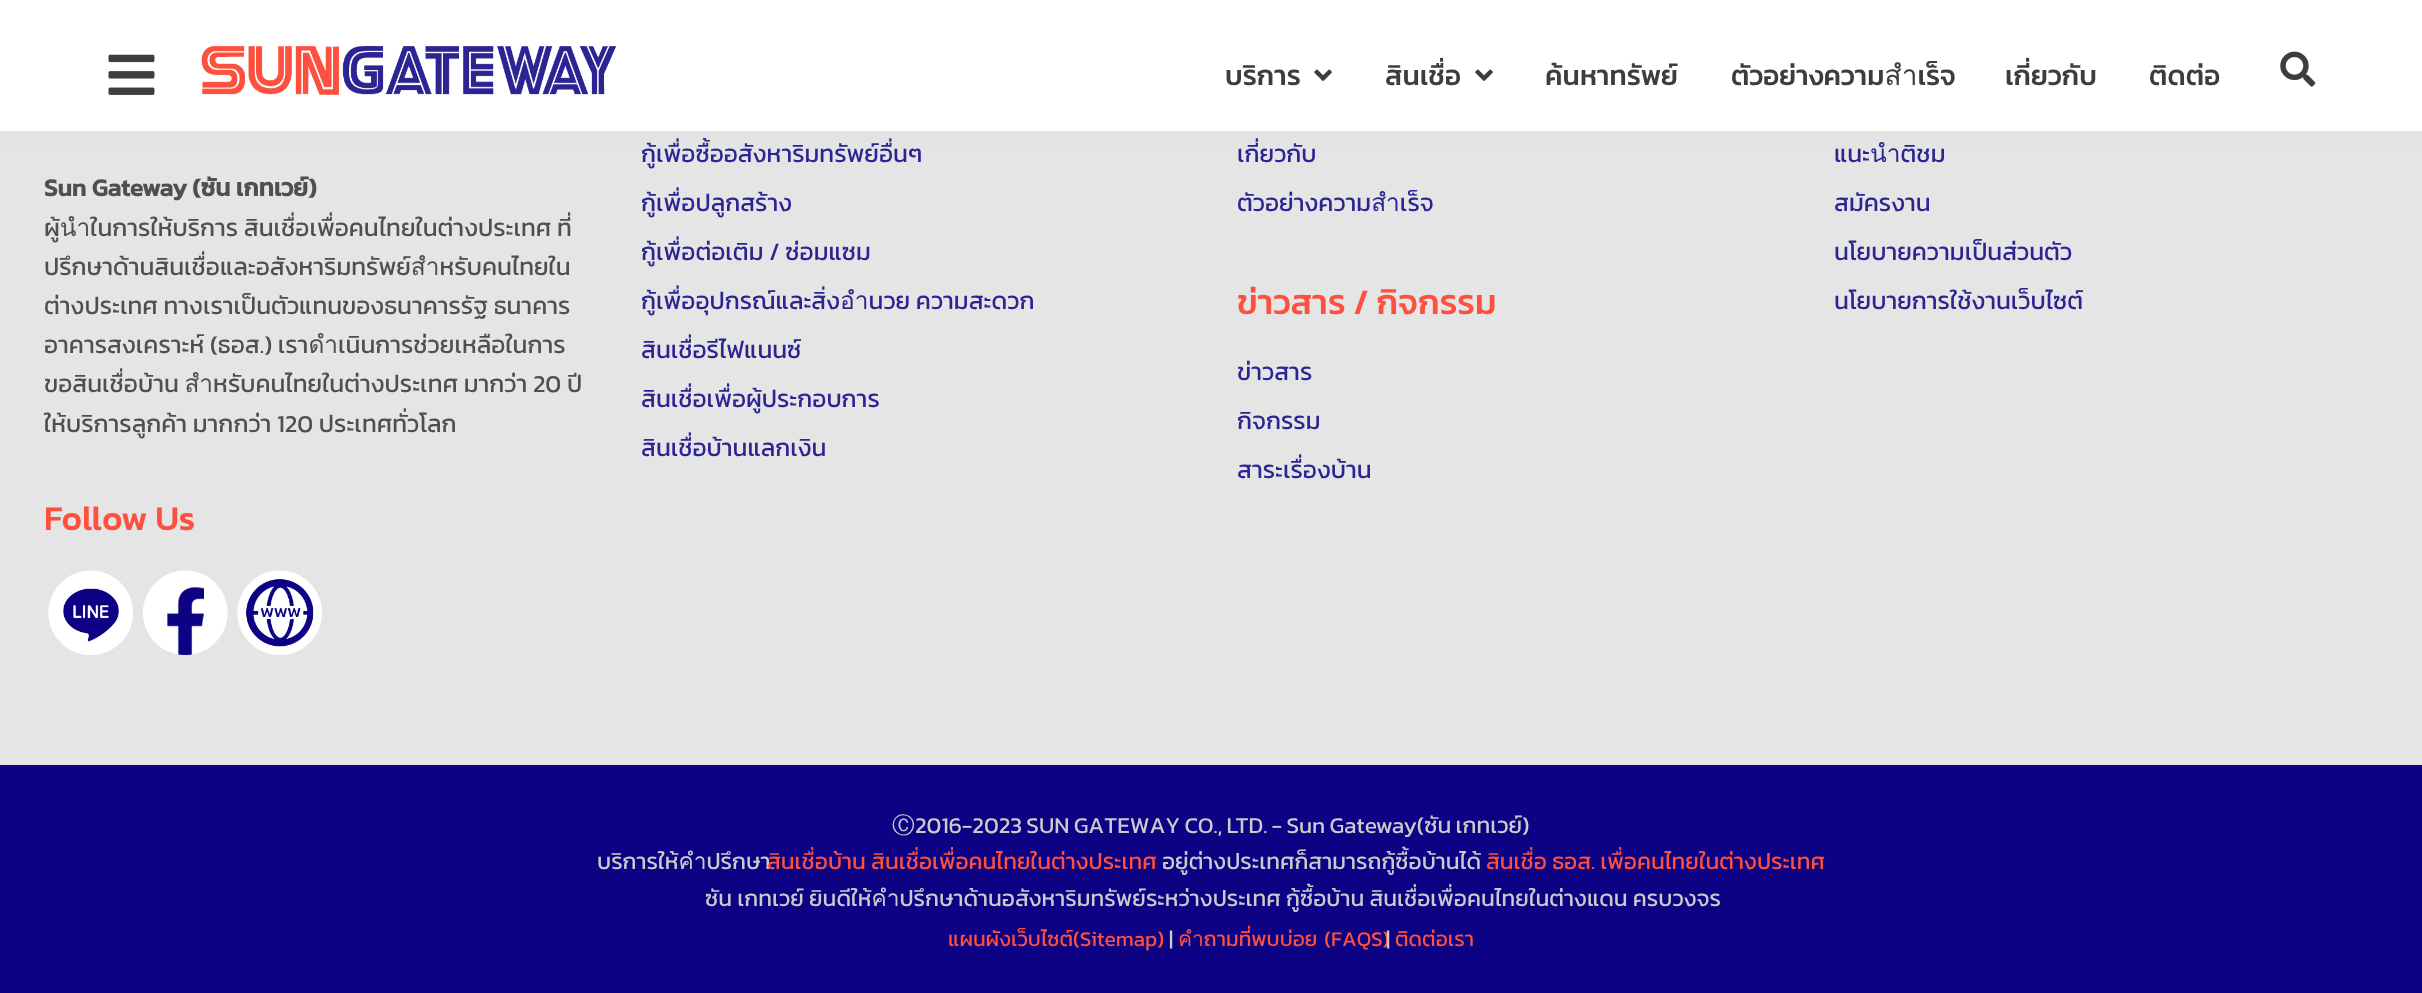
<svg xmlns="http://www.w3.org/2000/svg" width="2422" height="993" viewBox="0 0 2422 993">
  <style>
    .t1 { font: 500 28px Kanit; fill: #3d3d3d; }
    .t2 { font: bold 24.5px Kanit; fill: #4f4f4f; }
    .t3 { font: 24.5px Kanit; fill: #4f4f4f; }
    .t4 { font: 500 35px Kanit; fill: #fe503f; }
    .t5 { font: 24.5px Kanit; fill: #2c2493; }
    .t6 { font: 500 22.75px WenQuanYi Zen Hei; fill: #cbcbcb; }
    .t7 { font: 22.75px Kanit; fill: #cbcbcb; }
    .t8 { font: 22.75px Kanit; fill: #fe503f; }
    .t9 { font: 21px Kanit; fill: #fe503f; }
    .t10 { font: 21px Kanit; fill: #cbcbcb; }
  </style>
  <rect width="100%" height="100%" fill="#e5e5e5"/>
  <rect x="0" y="4" width="2422" height="131" fill="#cccccc33" filter="blur(9px)"/>
  <rect x="0" y="0" width="2422" height="131" fill="#fff"/>
  <image x="108" y="54" width="47" height="41" href="images/1.png"/>
  <image x="201" y="46" width="415" height="49" href="images/2.png"/>
  <text x="1225" y="85" class="t1">บริการ</text>
  <image x="1314" y="69" width="18" height="12" href="images/3.png"/>
  <text x="1385" y="85" class="t1">สินเชื่อ</text>
  <image x="1475" y="69" width="18" height="12" href="images/3.png"/>
  <text x="1545" y="85" class="t1">ค้นหาทรัพย์</text>
  <text x="1731" y="85" class="t1">ตัวอย่างความสำเร็จ</text>
  <text x="2005" y="85" class="t1">เกี่ยวกับ</text>
  <text x="2149" y="85" class="t1">ติดต่อ</text>
  <image x="2280" y="51" width="36" height="36" href="images/4.png"/>
  <text x="44" y="196" class="t2">Sun Gateway (ซัน เกทเวย์)</text>
  <text x="44" y="236" class="t3">ผู้นำในการให้บริการ สินเชื่อเพื่อคนไทยในต่างประเทศ ที่</text>
  <text x="44" y="275" class="t3">ปรึกษาด้านสินเชื่อและอสังหาริมทรัพย์สำหรับคนไทยใน</text>
  <text x="44" y="314" class="t3">ต่างประเทศ ทางเราเป็นตัวแทนของธนาคารรัฐ ธนาคาร</text>
  <text x="44" y="353" class="t3">อาคารสงเคราะห์ (ธอส.) เราดำเนินการช่วยเหลือในการ</text>
  <text x="44" y="392" class="t3">ขอสินเชื่อบ้าน สำหรับคนไทยในต่างประเทศ มากว่า 20 ปี</text>
  <text x="44" y="432" class="t3">ให้บริการลูกค้า มากกว่า 120 ประเทศทั่วโลก</text>
  <text x="44" y="530" class="t4">Follow Us</text>
  <image x="48" y="570" width="85" height="85" href="images/5.png"/>
  <image x="143" y="570" width="85" height="85" href="images/6.png"/>
  <image x="237" y="570" width="85" height="85" href="images/7.png"/>
  <text x="641" y="162" class="t5">กู้เพื่อซื้ออสังหาริมทรัพย์อื่นๆ</text>
  <text x="641" y="211" class="t5">กู้เพื่อปลูกสร้าง</text>
  <text x="641" y="260" class="t5">กู้เพื่อต่อเติม / ซ่อมแซม</text>
  <text x="641" y="309" class="t5">กู้เพื่ออุปกรณ์และสิ่งอำนวย ความสะดวก</text>
  <text x="641" y="358" class="t5">สินเชื่อรีไฟแนนซ์</text>
  <text x="641" y="407" class="t5">สินเชื่อเพื่อผู้ประกอบการ</text>
  <text x="641" y="456" class="t5">สินเชื่อบ้านแลกเงิน</text>
  <text x="1237" y="162" class="t5">เกี่ยวกับ</text>
  <text x="1237" y="211" class="t5">ตัวอย่างความสำเร็จ</text>
  <text x="1237" y="314" class="t4">ข่าวสาร / กิจกรรม</text>
  <text x="1237" y="380" class="t5">ข่าวสาร</text>
  <text x="1237" y="429" class="t5">กิจกรรม</text>
  <text x="1237" y="478" class="t5">สาระเรื่องบ้าน</text>
  <text x="1834" y="162" class="t5">แนะนำติชม</text>
  <text x="1834" y="211" class="t5">สมัครงาน</text>
  <text x="1834" y="260" class="t5">นโยบายความเป็นส่วนตัว</text>
  <text x="1834" y="309" class="t5">นโยบายการใช้งานเว็บไซต์</text>
  <rect x="0" y="765" width="2422" height="228" fill="#0c0283"/>
  <text x="892" y="833" class="t6">Ⓒ</text>
  <text x="915" y="833" word-spacing="-1" class="t7">2016-2023 SUN GATEWAY CO., LTD. - Sun Gateway(ซัน เกทเวย์)</text>
  <text x="597" y="869" class="t7">บริการให้คำปรึกษา</text>
  <text x="767" y="869" class="t8">สินเชื่อบ้าน สินเชื่อเพื่อคนไทยในต่างประเทศ</text>
  <text x="1162" y="869" class="t7">อยู่ต่างประเทศก็สามารถกู้ซื้อบ้านได้</text>
  <text x="1486" y="869" class="t8">สินเชื่อ ธอส. เพื่อคนไทยในต่างประเทศ</text>
  <text x="705" y="906" class="t7">ซัน เกทเวย์ ยินดีให้คำปรึกษาด้านอสังหาริมทรัพย์ระหว่างประเทศ กู้ซื้อบ้าน สินเชื่อเพื่อคนไทยในต่างแดน ครบวงจร</text>
  <text x="948" y="946" class="t9">แผนผังเว็บไซต์(Sitemap)</text>
  <text x="1169" y="946" class="t10">|</text>
  <text x="1178" y="946" word-spacing="2" class="t9">คำถามที่พบบ่อย (FAQS)</text>
  <text x="1386" y="946" class="t10">|</text>
  <text x="1395" y="946" class="t9">ติดต่อเรา</text>
</svg>
